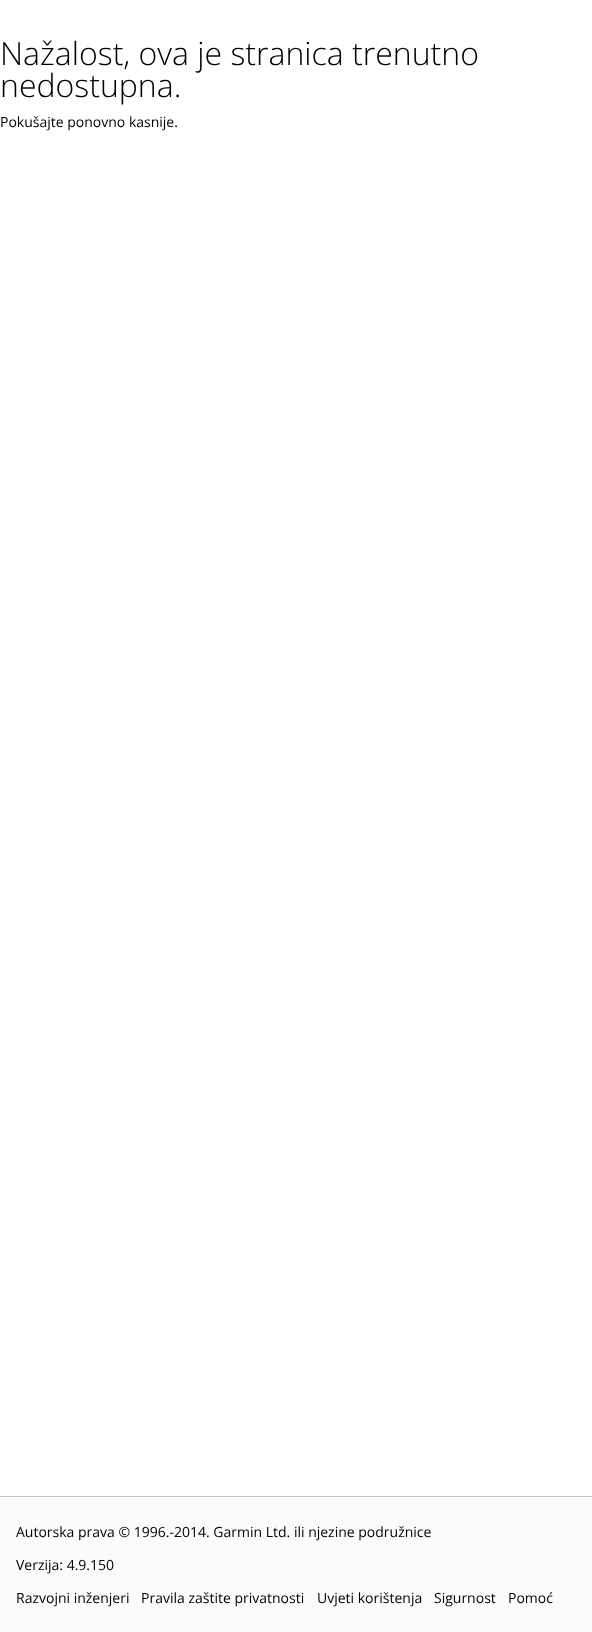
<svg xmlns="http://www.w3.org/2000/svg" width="592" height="1632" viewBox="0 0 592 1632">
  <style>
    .t1 { font: 300 32px Open Sans; fill: #000; }
    .t2 { font: 14px Open Sans; fill: #000; }
  </style>
  <rect width="100%" height="100%" fill="#fff"/>
  <text x="0" y="65" class="t1">Nažalost, ova je stranica trenutno</text>
  <text x="0" y="97" class="t1">nedostupna.</text>
  <text x="0" y="127" class="t2">Pokušajte ponovno kasnije.</text>
  <rect x="0" y="1497" width="592" height="135" fill="#fbfbfb"/>
  <rect x="0" y="1496" width="592" height="1" fill="#c3c3c3"/>
  <text x="16" y="1537" class="t2">Autorska prava © 1996.-2014. Garmin Ltd. ili njezine podružnice</text>
  <text x="16" y="1570" class="t2">Verzija: 4.9.150</text>
  <text x="16" y="1603" class="t2">Razvojni inženjeri</text>
  <text x="141" y="1603" class="t2">Pravila zaštite privatnosti</text>
  <text x="317" y="1603" class="t2">Uvjeti korištenja</text>
  <text x="434" y="1603" class="t2">Sigurnost</text>
  <text x="508" y="1603" class="t2">Pomoć</text>
</svg>
